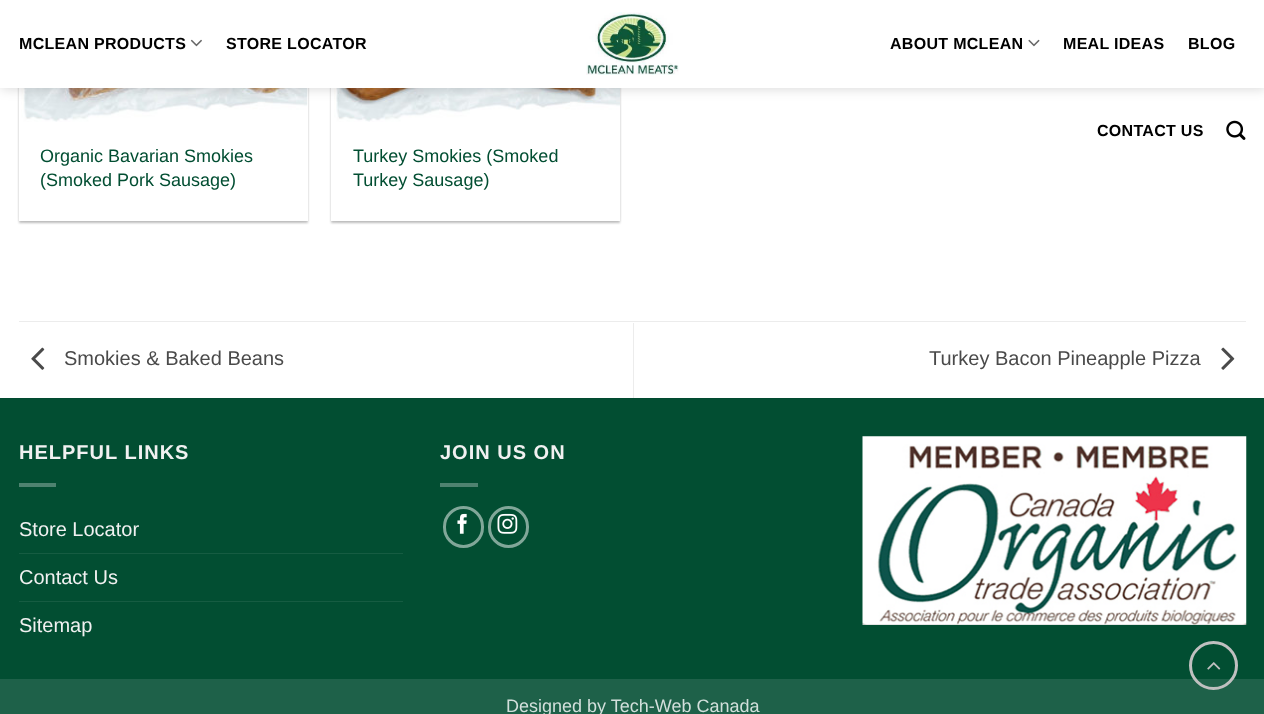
<svg xmlns="http://www.w3.org/2000/svg" width="1264" height="714" viewBox="0 0 1264 714">
  <style>
    .t1 { font: bold 16px Liberation Sans; letter-spacing: 0.3px; fill: #000; }
    .t2 { font: 18px Liberation Sans; fill: #024e32; }
    .t3 { font: 20px Liberation Sans; fill: #4a4a4a; }
    .t4 { font: bold 20px Liberation Sans; letter-spacing: 1px; fill: #f1f1f1; }
    .t5 { font: 20px Liberation Sans; fill: #f1f1f1; }
    .t6 { font: 18px Liberation Sans; fill: #d2dfdb; }
  </style>
  <rect width="100%" height="100%" fill="#fff"/>
  <rect x="19" y="-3" width="289" height="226" fill="#0000003d" filter="blur(1px)"/>
  <rect x="21" y="-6" width="284" height="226" fill="#0000001f" filter="blur(2px)"/>
  <rect x="19" y="88" width="289" height="133" fill="#fff"/>
  <image x="21" y="88" width="287" height="34" href="images/5.png"/>
  <rect x="331" y="-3" width="289" height="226" fill="#0000003d" filter="blur(1px)"/>
  <rect x="334" y="-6" width="284" height="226" fill="#0000001f" filter="blur(2px)"/>
  <rect x="331" y="88" width="289" height="133" fill="#fff"/>
  <image x="334" y="88" width="286" height="34" href="images/6.png"/>
  <rect x="1" y="1" width="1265" height="88" fill="#00000026" filter="blur(6px)"/>
  <rect x="0" y="0" width="1264" height="88" fill="#fff"/>
  <text x="19" y="49" class="t1">MCLEAN PRODUCTS</text>
  <image x="190" y="39" width="12" height="8" href="images/1.png"/>
  <text x="226" y="49" class="t1">STORE LOCATOR</text>
  <image x="586" y="12" width="93" height="63" href="images/2.png"/>
  <text x="890" y="49" class="t1">ABOUT MCLEAN</text>
  <image x="1028" y="39" width="12" height="8" href="images/3.png"/>
  <text x="1063" y="49" class="t1">MEAL IDEAS</text>
  <text x="1188" y="49" class="t1">BLOG</text>
  <text x="1097" y="136" class="t1">CONTACT US</text>
  <image x="1226" y="120" width="20" height="20" href="images/4.png"/>
  <text x="40" y="162" class="t2">Organic Bavarian Smokies</text>
  <text x="40" y="186" class="t2">(Smoked Pork Sausage)</text>
  <text x="353" y="162" class="t2">Turkey Smokies (Smoked</text>
  <text x="353" y="186" class="t2">Turkey Sausage)</text>
  <rect x="19" y="321" width="1227" height="1" fill="#ececec"/>
  <image x="31" y="347" width="14" height="23" href="images/7.png"/>
  <text x="64" y="365" class="t3">Smokies &amp; Baked Beans</text>
  <rect x="633" y="323" width="1" height="75" fill="#ececec"/>
  <text x="929" y="365" class="t3">Turkey Bacon Pineapple Pizza</text>
  <image x="1221" y="347" width="14" height="23" href="images/8.png"/>
  <rect x="0" y="399" width="1264" height="280" fill="#024e32"/>
  <rect x="0" y="398" width="1264" height="1" fill="#024a30"/>
  <text x="19" y="459" class="t4">HELPFUL LINKS</text>
  <rect x="19" y="483" width="37" height="4" fill="#4e8370"/>
  <text x="19" y="536" class="t5">Store Locator</text>
  <rect x="19" y="553" width="384" height="1" fill="#165c42"/>
  <text x="19" y="584" class="t5">Contact Us</text>
  <rect x="19" y="601" width="384" height="1" fill="#165c42"/>
  <text x="19" y="632" class="t5">Sitemap</text>
  <text x="440" y="459" class="t4">JOIN US ON</text>
  <rect x="440" y="483" width="38" height="4" fill="#4e8370"/>
  <rect x="444.5" y="507.5" width="38" height="39" rx="19" fill="none" stroke="#81a799" stroke-width="3"/>
  <image x="457" y="513" width="10" height="21" href="images/9.png"/>
  <rect x="489.5" y="507.5" width="38" height="39" rx="19" fill="none" stroke="#81a799" stroke-width="3"/>
  <image x="497" y="513" width="21" height="21" href="images/10.png"/>
  <image x="862" y="436" width="385" height="189" href="images/11.png"/>
  <rect x="0" y="679" width="1264" height="35" fill="#1e6149"/>
  <circle cx="1213.5" cy="665.5" r="23" fill="none" stroke="#c0c0c0" stroke-width="3"/>
  <image x="1207" y="662" width="14" height="8" href="images/12.png"/>
  <text x="506" y="712" class="t6">Designed by Tech-Web Canada</text>
</svg>
